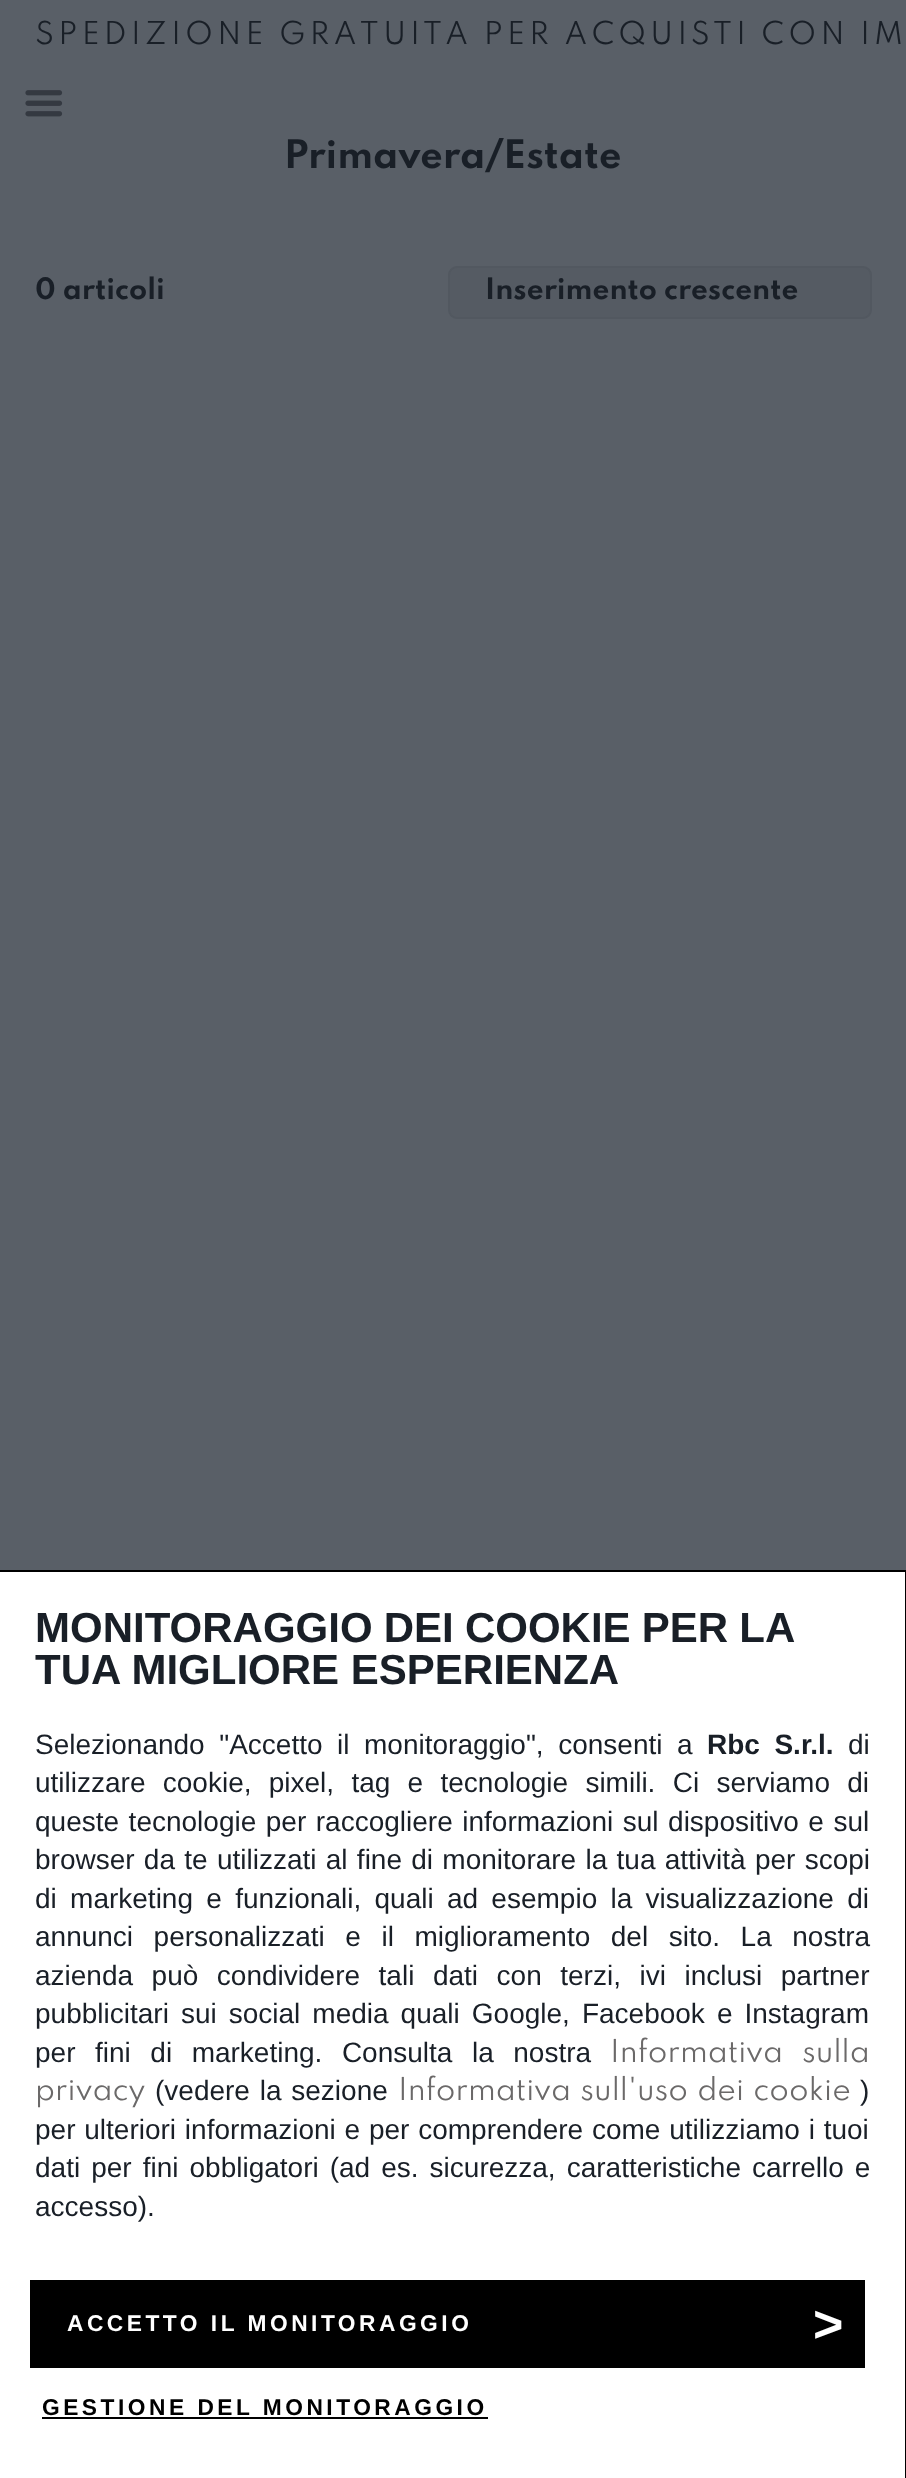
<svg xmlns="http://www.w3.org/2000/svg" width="906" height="2478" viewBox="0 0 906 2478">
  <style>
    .t1 { font: bold 35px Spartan; fill: #191f27; }
    .t2 { font: 28px Spartan; letter-spacing: 4.2px; fill: #191f27; }
    .t3 { font: bold 26.25px Spartan; fill: #191f27; }
    .t4 { font: bold 42px Liberation Sans; fill: #191f27; }
    .t5 { font: 28px Liberation Sans; fill: #191f27; }
    .t6 { font: bold 28px Liberation Sans; fill: #191f27; }
    .t7 { font: 28px Spartan; fill: #6b6969; }
    .t8 { font: bold 22.75px Liberation Sans; letter-spacing: 3.5px; fill: #fff; }
    .t9 { font: bold 52px Liberation Sans; letter-spacing: 3.5px; fill: #fff; }
    .t10 { font: bold 22.75px Liberation Sans; letter-spacing: 3.5px; fill: #000; }
  </style>
  <rect width="100%" height="100%" fill="#595f67"/>
  <text x="284" y="168" class="t1">Primavera/Estate</text>
  <rect x="499" y="137" width="5" height="1" fill="#595f67"/>
  <text x="35" y="44" class="t2">SPEDIZIONE GRATUITA PER ACQUISTI CON IM</text>
  <image x="25" y="90" width="38" height="27" href="images/1.png"/>
  <text x="35" y="299" class="t3">0 articoli</text>
  <rect x="449" y="267" width="422" height="51" rx="8" fill="#555b63" stroke="#525860" stroke-width="2"/>
  <text x="485" y="299" class="t3">Inserimento crescente</text>
  <rect x="0" y="1572" width="905" height="906" fill="#fff"/>
  <rect x="0" y="1570" width="906" height="2" fill="#000"/>
  <rect x="905" y="1570" width="1" height="908" fill="#000"/>
  <text x="35" y="1642" word-spacing="-0.5" class="t4">MONITORAGGIO DEI COOKIE PER LA</text>
  <text x="35" y="1684" class="t4">TUA MIGLIORE ESPERIENZA</text>
  <text x="35" y="1754" word-spacing="6.75" class="t5">Selezionando "Accetto il monitoraggio", consenti a</text>
  <text x="707" y="1754" word-spacing="6.75" class="t6">Rbc S.r.l.</text>
  <text x="848" y="1754" class="t5">di</text>
  <text x="35" y="1792" word-spacing="9.5" class="t5">utilizzare cookie, pixel, tag e tecnologie simili. Ci serviamo di</text>
  <text x="35" y="1831" word-spacing="1.75" class="t5">queste tecnologie per raccogliere informazioni sul dispositivo e sul</text>
  <text x="35" y="1869" word-spacing="1.5" class="t5">browser da te utilizzati al fine di monitorare la tua attività per scopi</text>
  <text x="35" y="1908" word-spacing="5.5" class="t5">di marketing e funzionali, quali ad esempio la visualizzazione di</text>
  <text x="35" y="1946" word-spacing="12.75" class="t5">annunci personalizzati e il miglioramento del sito. La nostra</text>
  <text x="35" y="1985" word-spacing="10.75" class="t5">azienda può condividere tali dati con terzi, ivi inclusi partner</text>
  <text x="35" y="2023" word-spacing="4.25" class="t5">pubblicitari sui social media quali Google, Facebook e Instagram</text>
  <text x="35" y="2062" word-spacing="11.75" class="t5">per fini di marketing. Consulta la nostra</text>
  <text x="610" y="2062" word-spacing="11.75" class="t7">Informativa sulla</text>
  <text x="35" y="2100" class="t7">privacy</text>
  <text x="155" y="2100" word-spacing="2" class="t5">(vedere la sezione</text>
  <text x="398" y="2100" word-spacing="2" class="t7">Informativa sull'uso dei cookie</text>
  <text x="860" y="2100" class="t5">)</text>
  <text x="35" y="2139" word-spacing="1" class="t5">per ulteriori informazioni e per comprendere come utilizziamo i tuoi</text>
  <text x="35" y="2177" word-spacing="3.25" class="t5">dati per fini obbligatori (ad es. sicurezza, caratteristiche carrello e</text>
  <text x="35" y="2216" class="t5">accesso).</text>
  <rect x="30" y="2280" width="835" height="88" fill="#000"/>
  <text x="67" y="2331" class="t8">ACCETTO IL MONITORAGGIO</text>
  <text x="813" y="2342" class="t9">&gt;</text>
  <text x="42" y="2415" class="t10">GESTIONE DEL MONITORAGGIO</text>
  <rect x="42" y="2417" width="446" height="2" fill="#000"/>
</svg>
